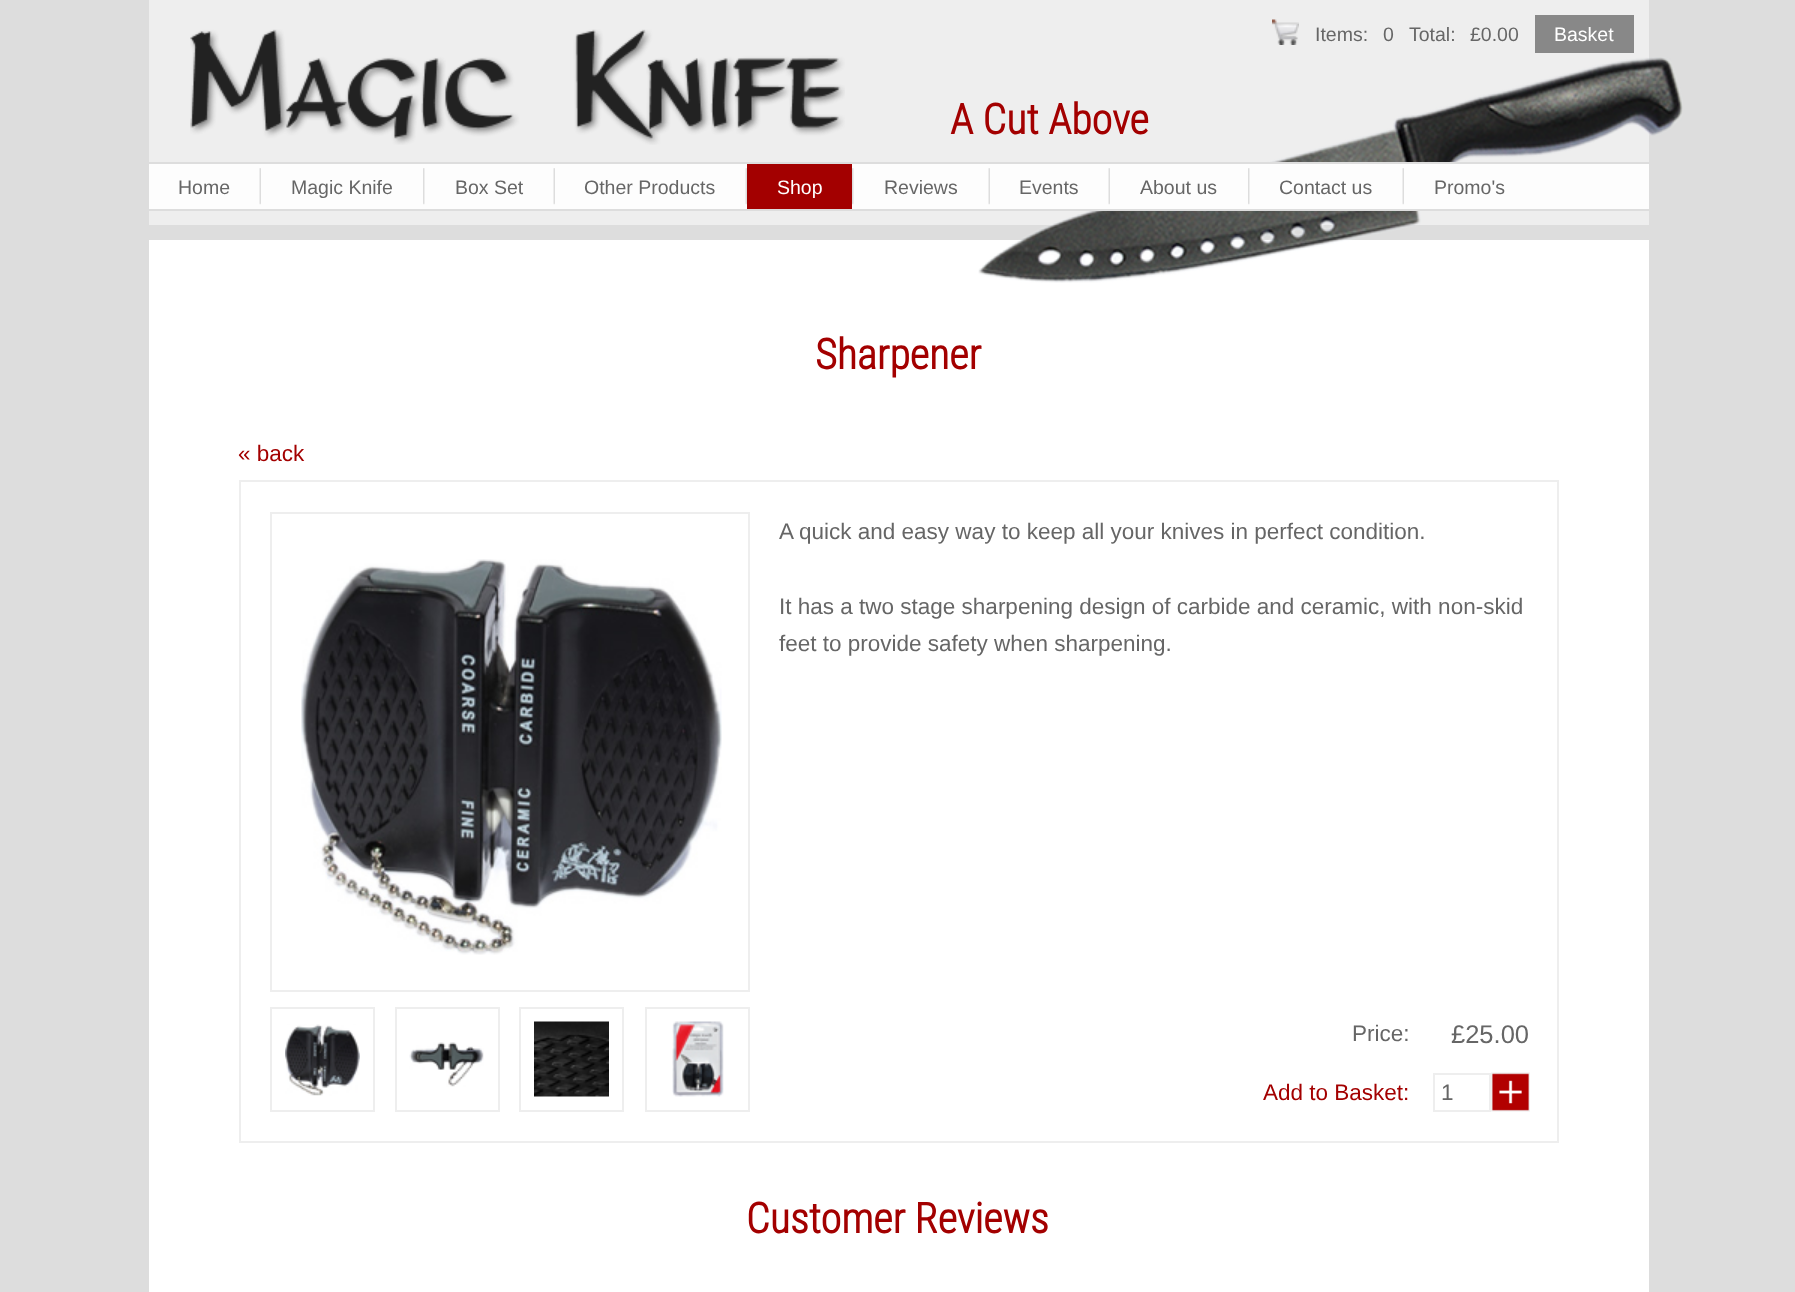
<svg xmlns="http://www.w3.org/2000/svg" width="1795" height="1292" viewBox="0 0 1795 1292">
  <style>
    .t1 { font: bold 42px Roboto Condensed; fill: #a30000; }
    .t2 { font: 19.5px Liberation Sans; fill: #666; }
    .t3 { font: 19.5px Liberation Sans; fill: #fff; }
    .t4 { font: 22.5px Liberation Sans; fill: #a30000; }
    .t5 { font: 22.5px Liberation Sans; fill: #666; }
    .t6 { font: 25.5px Liberation Sans; fill: #666; }
  </style>
  <rect width="100%" height="100%" fill="#ddd"/>
  <rect x="149" y="0" width="1500" height="225" fill="#eee"/>
  <image x="190" y="29" width="655" height="116" href="images/1.png"/>
  <text x="950" y="134" class="t1">A Cut Above</text>
  <image x="1272" y="19" width="27" height="26" href="images/2.png"/>
  <text x="1315" y="41" class="t2">Items:</text>
  <text x="1383" y="41" class="t2">0</text>
  <text x="1409" y="41" class="t2">Total:</text>
  <text x="1470" y="41" class="t2">£0.00</text>
  <rect x="1535" y="15" width="99" height="38" fill="#888"/>
  <text x="1554" y="41" class="t3">Basket</text>
  <rect x="149" y="240" width="1500" height="1052" fill="#fff"/>
  <image x="978" y="57" width="705" height="226" href="images/3.png"/>
  <rect x="149" y="164" width="1500" height="45" fill="#fdfdfd"/>
  <rect x="149" y="162" width="1500" height="2" fill="#ddd"/>
  <rect x="149" y="209" width="1500" height="2" fill="#ddd"/>
  <text x="178" y="194" class="t2">Home</text>
  <image x="259" y="168" width="2" height="37" href="images/4.png"/>
  <text x="291" y="194" class="t2">Magic Knife</text>
  <image x="423" y="168" width="2" height="37" href="images/5.png"/>
  <text x="455" y="194" class="t2">Box Set</text>
  <image x="553" y="168" width="2" height="37" href="images/4.png"/>
  <text x="584" y="194" class="t2">Other Products</text>
  <image x="745" y="168" width="2" height="37" href="images/4.png"/>
  <rect x="747" y="164" width="105" height="45" fill="#a30000"/>
  <text x="777" y="194" class="t3">Shop</text>
  <image x="852" y="168" width="2" height="37" href="images/5.png"/>
  <text x="884" y="194" class="t2">Reviews</text>
  <image x="988" y="168" width="2" height="37" href="images/4.png"/>
  <text x="1019" y="194" class="t2">Events</text>
  <image x="1108" y="168" width="2" height="37" href="images/4.png"/>
  <text x="1140" y="194" class="t2">About us</text>
  <image x="1248" y="168" width="2" height="37" href="images/5.png"/>
  <text x="1279" y="194" class="t2">Contact us</text>
  <image x="1402" y="168" width="2" height="37" href="images/4.png"/>
  <text x="1434" y="194" class="t2">Promo's</text>
  <text x="815" y="369" class="t1">Sharpener</text>
  <text x="238" y="461" class="t4">« back</text>
  <rect x="240" y="481" width="1318" height="661" fill="none" stroke="#eee" stroke-width="2"/>
  <rect x="271" y="513" width="478" height="478" fill="none" stroke="#eee" stroke-width="2"/>
  <image x="301" y="559" width="421" height="396" href="images/6.png"/>
  <rect x="271" y="1008" width="103" height="103" fill="none" stroke="#eee" stroke-width="2"/>
  <image x="285" y="1024" width="75" height="72" href="images/7.png"/>
  <rect x="396" y="1008" width="103" height="103" fill="none" stroke="#eee" stroke-width="2"/>
  <image x="409" y="1042" width="75" height="45" href="images/8.png"/>
  <rect x="520" y="1008" width="103" height="103" fill="none" stroke="#eee" stroke-width="2"/>
  <image x="534" y="1021" width="75" height="76" href="images/9.png"/>
  <rect x="646" y="1008" width="103" height="103" fill="none" stroke="#eee" stroke-width="2"/>
  <image x="672" y="1021" width="52" height="76" href="images/10.png"/>
  <text x="779" y="539" class="t5">A quick and easy way to keep all your knives in perfect condition.</text>
  <text x="779" y="614" class="t5">It has a two stage sharpening design of carbide and ceramic, with non-skid</text>
  <text x="779" y="651" class="t5">feet to provide safety when sharpening.</text>
  <text x="1352" y="1041" class="t5">Price:</text>
  <text x="1451" y="1043" class="t6">£25.00</text>
  <text x="1263" y="1100" class="t4">Add to Basket:</text>
  <rect x="1434" y="1074" width="56" height="37" fill="none" stroke="#eee" stroke-width="2"/>
  <text x="1441" y="1100" class="t5">1</text>
  <image x="1491" y="1072" width="39" height="40" href="images/11.png"/>
  <text x="746" y="1233" class="t1">Customer Reviews</text>
</svg>
